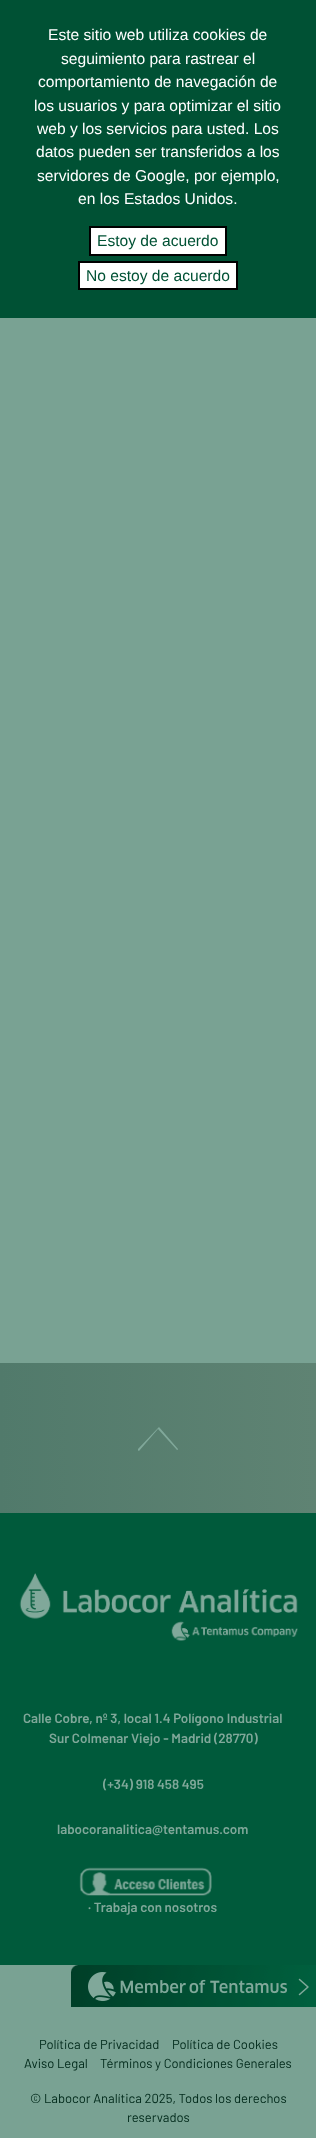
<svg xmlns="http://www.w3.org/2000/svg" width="316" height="2138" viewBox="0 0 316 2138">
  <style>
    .t1 { font: 15.6px Liberation Sans; fill: #fff; }
    .t2 { font: 15.6px Liberation Sans; fill: #005134; }
    .t3 { font: 600 13.4px Barlow; fill: #80a89a; }
    .t4 { font: 13px Barlow; fill: #00291a; }
  </style>
  <defs>
    <linearGradient id="g1" gradientUnits="userSpaceOnUse" x1="0" y1="1438" x2="316" y2="1438"><stop offset="0" stop-color="#517a6b"/><stop offset="1" stop-color="#5f8373"/></linearGradient>
  </defs>
  <rect width="100%" height="100%" fill="#79a293"/>
  <rect x="0" y="0" width="316" height="318" fill="#005134"/>
  <text x="48" y="40" class="t1">Este sitio web utiliza cookies de</text>
  <text x="61" y="64" class="t1">seguimiento para rastrear el</text>
  <text x="38" y="87" class="t1">comportamiento de navegación de</text>
  <text x="34" y="111" class="t1">los usuarios y para optimizar el sitio</text>
  <text x="37" y="134" class="t1">web y los servicios para usted. Los</text>
  <text x="36" y="157" class="t1">datos pueden ser transferidos a los</text>
  <text x="37" y="181" class="t1">servidores de Google, por ejemplo,</text>
  <text x="78" y="204" class="t1">en los Estados Unidos.</text>
  <rect x="90" y="227" width="136" height="28" fill="#fff" stroke="#000" stroke-width="2"/>
  <text x="97" y="246" class="t2">Estoy de acuerdo</text>
  <rect x="79" y="262" width="158" height="27" fill="#fff" stroke="#000" stroke-width="2"/>
  <text x="86" y="281" class="t2">No estoy de acuerdo</text>
  <rect x="0" y="1363" width="316" height="150" fill="url(#g1)"/>
  <path d="M139 1451L158 1429L177 1450C178 1450 178 1449 178 1449L159 1427L158 1428L138 1449C138 1450 138 1451 139 1451Z" fill="#80a89a"/>
  <rect x="0" y="1513" width="316" height="452" fill="#005a3b"/>
  <image x="19" y="1573" width="279" height="68" href="images/1.png"/>
  <text x="23" y="1723" class="t3">Calle Cobre, nº 3, local 1.4 Polígono Industrial</text>
  <text x="49" y="1743" class="t3">Sur Colmenar Viejo - Madrid (28770)</text>
  <text x="103" y="1789" class="t3">(+34) 918 458 495</text>
  <text x="57" y="1834" class="t3">labocoranalitica@tentamus.com</text>
  <image x="79" y="1867" width="133" height="29" href="images/2.png"/>
  <text x="88" y="1912" class="t3">· Trabaja con nosotros</text>
  <image x="71" y="1965" width="245" height="42" href="images/3.png"/>
  <text x="39" y="2049" class="t4">Política de Privacidad</text>
  <text x="172" y="2049" class="t4">Política de Cookies</text>
  <text x="24" y="2068" class="t4">Aviso Legal</text>
  <text x="100" y="2068" class="t4">Términos y Condiciones Generales</text>
  <text x="30" y="2103" class="t4">© Labocor Analítica 2025, Todos los derechos</text>
  <text x="127" y="2122" class="t4">reservados</text>
</svg>
